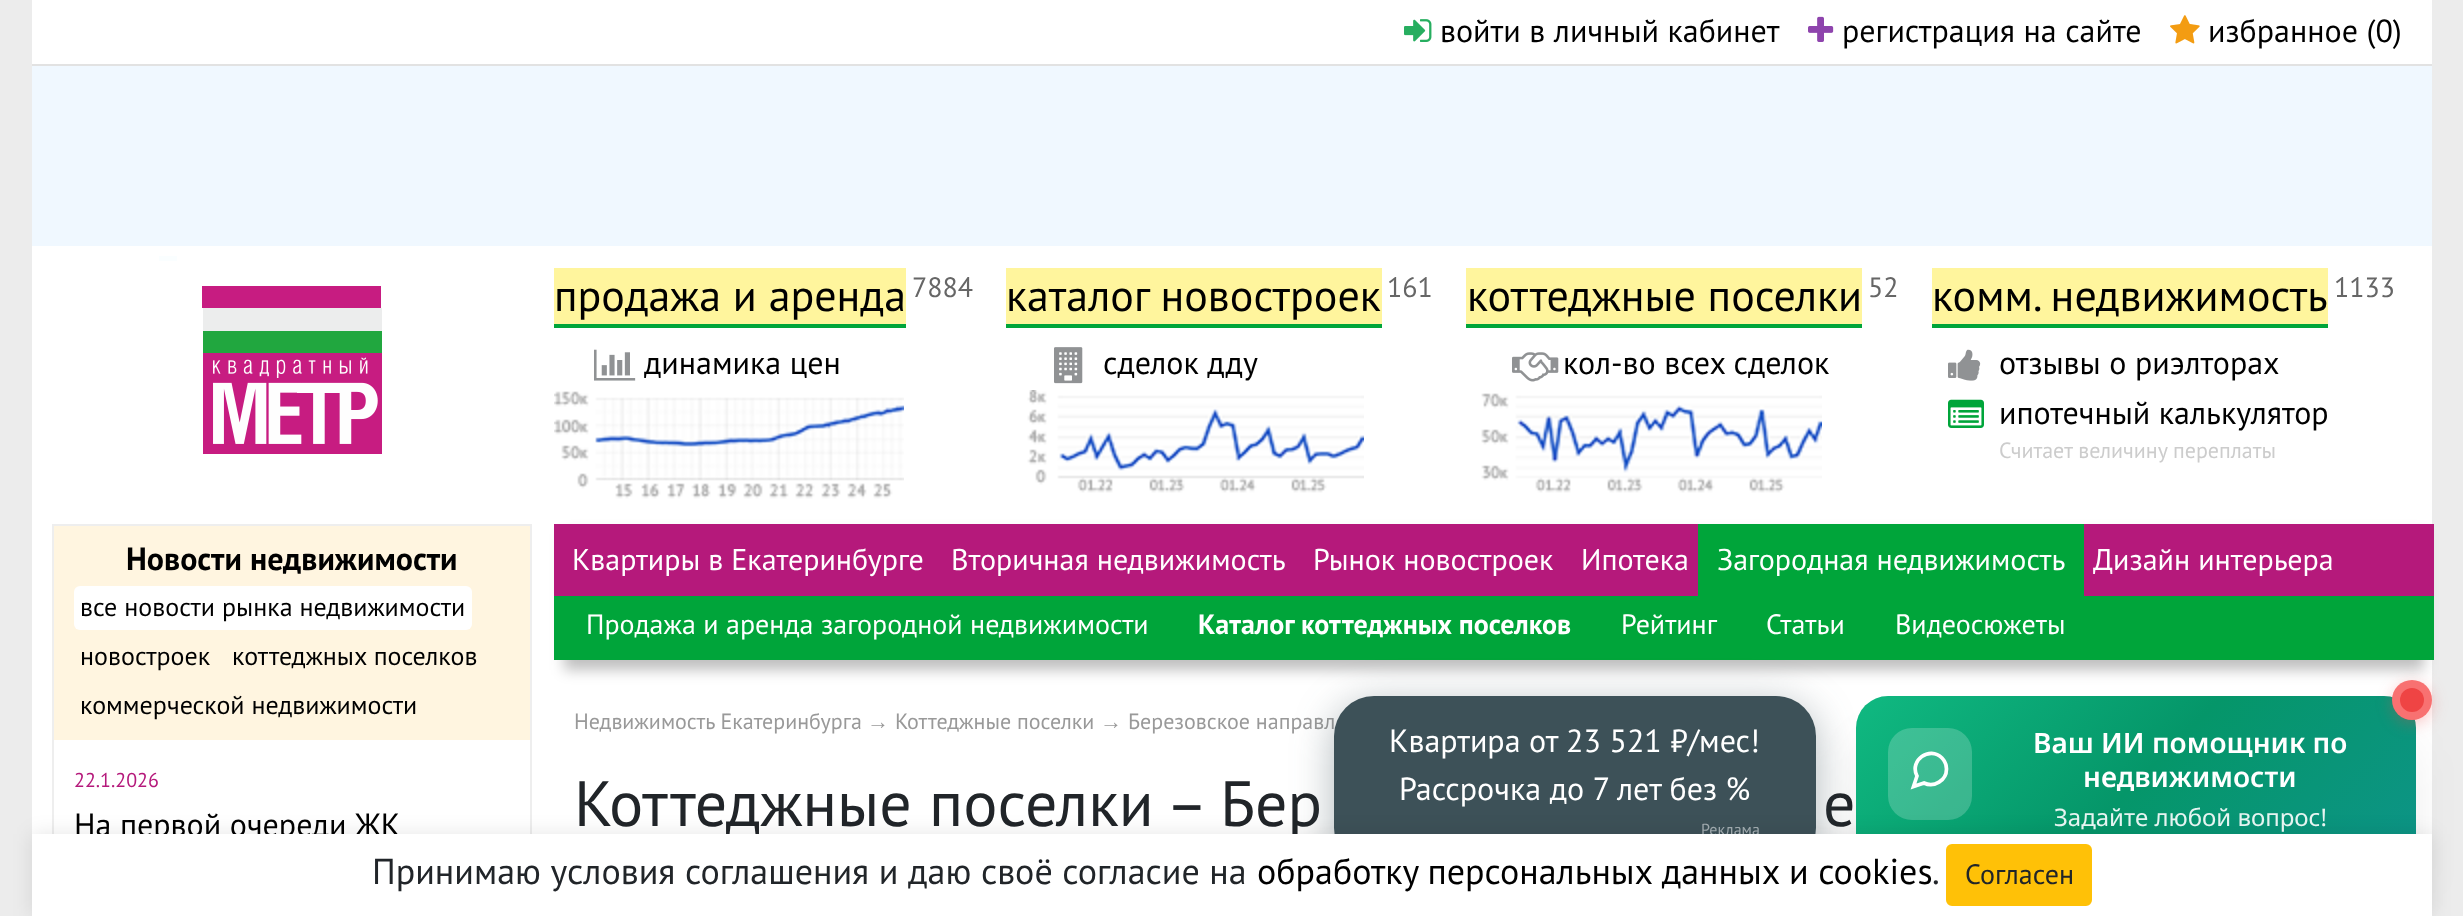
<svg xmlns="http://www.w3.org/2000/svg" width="2463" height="916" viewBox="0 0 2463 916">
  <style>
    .t1 { font: 32px PT Sans; fill: #000; }
    .t2 { font: 44px PT Sans; fill: #000; }
    .t3 { font: 28px PT Sans; fill: #666; }
    .t4 { font: 22px PT Sans; fill: #ccc; }
    .t5 { font: bold 32px PT Sans; fill: #000; }
    .t6 { font: 26px PT Sans; fill: #000; }
    .t7 { font: 20px PT Sans; fill: #b5197b; }
    .t8 { font: 30px PT Sans; fill: #fff; }
    .t9 { font: 28px PT Sans; fill: #fff; }
    .t10 { font: bold 28px PT Sans; fill: #fff; }
    .t11 { font: 22px PT Sans; fill: #999; }
    .t12 { font: 22px Liberation Sans; fill: #999; }
    .t13 { font: 64px PT Sans; fill: #212529; }
    .t14 { font: 16px PT Sans; fill: #9ea8ac; }
    .t15 { font: 36px PT Sans; fill: #212529; }
    .t16 { font: 36px PT Sans; fill: #000; }
    .t17 { font: 28px PT Sans; fill: #212529; }
    .t18 { font: 32px PT Sans; fill: #fff; }
    .t19 { font: 600 28px Noto Sans; fill: #fff; }
    .t20 { font: 24px Noto Sans; fill: #e6f4f1; }
  </style>
  <defs>
    <linearGradient id="g1" gradientUnits="userSpaceOnUse" x1="1953" y1="599" x2="2319" y2="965"><stop offset="0" stop-color="#10b981"/><stop offset="0.5" stop-color="#059669"/><stop offset="1" stop-color="#0d9488"/></linearGradient>
  </defs>
  <rect width="100%" height="100%" fill="#ececec"/>
  <rect x="32" y="0" width="2400" height="834" fill="#fff"/>
  <rect x="159" y="256" width="18" height="5" fill="#fafeff"/>
  <rect x="32" y="64" width="2400" height="2" fill="#e2e2e2"/>
  <image x="1404" y="19" width="28" height="23" href="images/1.png"/>
  <text x="1440" y="42" class="t1">войти в личный кабинет</text>
  <image x="1808" y="16" width="26" height="26" href="images/2.png"/>
  <text x="1842" y="42" class="t1">регистрация на сайте</text>
  <image x="2170" y="15" width="30" height="29" href="images/3.png"/>
  <text x="2208" y="42" class="t1">избранное (0)</text>
  <rect x="32" y="66" width="2400" height="180" fill="#f0f8ff"/>
  <image x="202" y="286" width="180" height="168" href="images/4.png"/>
  <rect x="554" y="268" width="352" height="56" fill="#fff59d"/>
  <text x="554" y="311" class="t2">продажа и аренда</text>
  <rect x="554" y="324" width="352" height="4" fill="#00a53a"/>
  <text x="912" y="297" class="t3">7884</text>
  <rect x="1006" y="268" width="376" height="56" fill="#fff59d"/>
  <text x="1006" y="311" class="t2">каталог новостроек</text>
  <rect x="1006" y="324" width="376" height="4" fill="#00a53a"/>
  <text x="1387" y="297" class="t3">161</text>
  <rect x="1466" y="268" width="396" height="56" fill="#fff59d"/>
  <text x="1467" y="311" class="t2">коттеджные поселки</text>
  <rect x="1466" y="324" width="396" height="4" fill="#00a53a"/>
  <text x="1868" y="297" class="t3">52</text>
  <rect x="1932" y="268" width="396" height="56" fill="#fff59d"/>
  <text x="1932" y="311" class="t2">комм. недвижимость</text>
  <rect x="1932" y="324" width="396" height="4" fill="#00a53a"/>
  <text x="2334" y="297" class="t3">1133</text>
  <image x="594" y="349" width="42" height="32" href="images/5.png"/>
  <text x="644" y="374" class="t1">динамика цен</text>
  <image x="554" y="391" width="350" height="108" href="images/6.png"/>
  <image x="1054" y="347" width="29" height="37" href="images/7.png"/>
  <text x="1103" y="374" class="t1">сделок дду</text>
  <image x="1027" y="390" width="337" height="103" href="images/8.png"/>
  <image x="1512" y="352" width="47" height="30" href="images/9.png"/>
  <text x="1563" y="374" class="t1">кол-во всех сделок</text>
  <image x="1481" y="393" width="341" height="100" href="images/10.png"/>
  <image x="1948" y="349" width="33" height="32" href="images/11.png"/>
  <text x="1999" y="374" class="t1">отзывы о риэлторах</text>
  <image x="1948" y="399" width="36" height="29" href="images/12.png"/>
  <text x="1999" y="424" class="t1">ипотечный калькулятор</text>
  <text x="1999" y="458" class="t4">Считает величину переплаты</text>
  <rect x="53" y="525" width="478" height="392" fill="none" stroke="#eee" stroke-width="2"/>
  <rect x="54" y="526" width="476" height="214" fill="#fff5e0"/>
  <text x="126" y="570" class="t5">Новости недвижимости</text>
  <rect x="74" y="586" width="398" height="44" rx="6" fill="#fff"/>
  <text x="80" y="616" class="t6">все новости рынка недвижимости</text>
  <text x="80" y="665" class="t6">новостроек</text>
  <text x="232" y="665" class="t6">коттеджных поселков</text>
  <text x="80" y="714" class="t6">коммерческой недвижимости</text>
  <text x="74" y="787" class="t7">22.1.2026</text>
  <text x="74" y="836" class="t1">На первой очереди ЖК</text>
  <rect x="564" y="534" width="1860" height="136" fill="#00000040" filter="blur(7px)"/>
  <rect x="554" y="524" width="1880" height="72" fill="#b5197b"/>
  <text x="572" y="570" class="t8">Квартиры в Екатеринбурге</text>
  <text x="951" y="570" class="t8">Вторичная недвижимость</text>
  <text x="1313" y="570" class="t8">Рынок новостроек</text>
  <text x="1581" y="570" class="t8">Ипотека</text>
  <rect x="1698" y="524" width="386" height="72" fill="#00a53a"/>
  <text x="1717" y="570" class="t8">Загородная недвижимость</text>
  <text x="2093" y="570" class="t8">Дизайн интерьера</text>
  <rect x="554" y="596" width="1880" height="64" fill="#00a53a"/>
  <text x="586" y="634" class="t9">Продажа и аренда загородной недвижимости</text>
  <text x="1198" y="634" class="t10">Каталог коттеджных поселков</text>
  <text x="1621" y="634" class="t9">Рейтинг</text>
  <text x="1766" y="634" class="t9">Статьи</text>
  <text x="1895" y="634" class="t9">Видеосюжеты</text>
  <text x="574" y="729" class="t11">Недвижимость Екатеринбурга</text>
  <text x="867" y="729" class="t12">→</text>
  <text x="895" y="729" class="t11">Коттеджные поселки</text>
  <text x="1100" y="729" class="t12">→</text>
  <text x="1128" y="729" class="t11">Березовское направл</text>
  <text x="574" y="826" class="t13">Коттеджные поселки – Бер</text>
  <text x="1823" y="826" class="t13">е</text>
  <rect x="1334" y="704" width="482" height="172" rx="40" fill="#3d515866" filter="blur(20px)"/>
  <rect x="1334" y="696" width="482" height="172" rx="40" fill="#3d5158"/>
  <rect x="1866" y="746" width="540" height="152" rx="22" fill="#0000001a" filter="blur(25px)"/>
  <rect x="1856" y="696" width="560" height="172" rx="32" fill="url(#g1)"/>
  <rect x="1888" y="728" width="84" height="92" rx="24" fill="#ffffff33"/>
  <rect x="32" y="834" width="2400" height="82" fill="#0000001a" filter="blur(10px)"/>
  <text x="1701" y="835" class="t14">Реклама</text>
  <rect x="32" y="834" width="2400" height="82" fill="#fff"/>
  <text x="372" y="884" class="t15">Принимаю условия соглашения и даю своё согласие на</text>
  <text x="1257" y="884" class="t16">обработку персональных данных и cookies</text>
  <text x="1932" y="884" class="t15">.</text>
  <rect x="1947" y="845" width="144" height="60" rx="5" fill="#ffc107" stroke="#ffc107" stroke-width="2"/>
  <text x="1965" y="884" class="t17">Согласен</text>
  <text x="1389" y="752" class="t18">Квартира от 23 521 ₽/мес!</text>
  <text x="1399" y="800" class="t18">Рассрочка до 7 лет без %</text>
  <rect x="2392" y="684" width="40" height="40" rx="20" fill="#ef44444d" filter="blur(8px)"/>
  <circle cx="2412" cy="700" r="20" fill="#f87171"/>
  <circle cx="2412" cy="700" r="12" fill="#ef4444"/>
  <path d="M1946.5 769C1946.5 780.5 1934 788 1924 783L1913.5 786.5L1917 776C1909 760.5 1929.5 745.5 1942 758C1945 761 1946.5 765 1946.5 769Z" fill="none" stroke="#fff" stroke-width="3.7"/>
  <text x="2033" y="753" class="t19">Ваш ИИ помощник по</text>
  <text x="2083" y="787" class="t19">недвижимости</text>
  <text x="2054" y="826" class="t20">Задайте любой вопрос!</text>
</svg>
